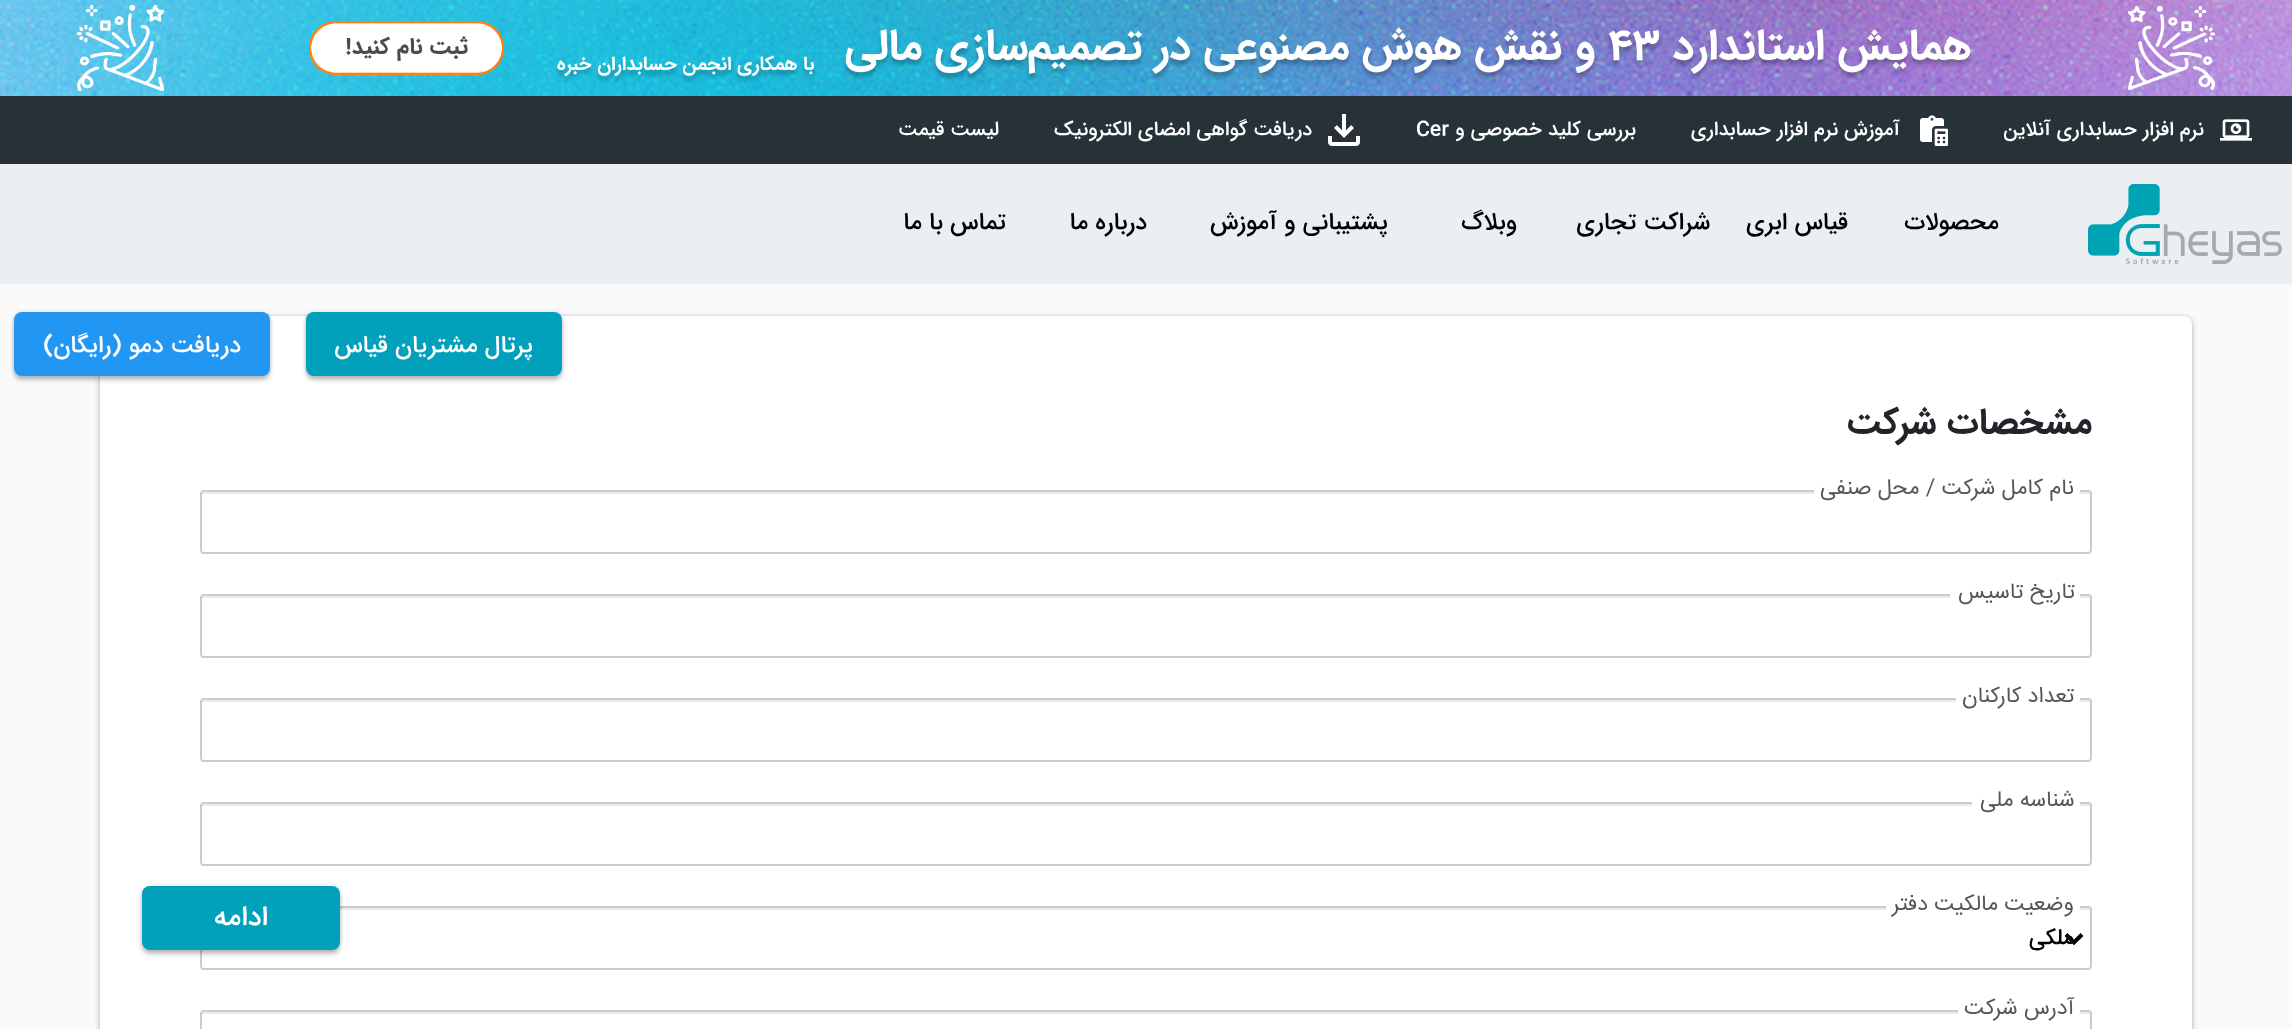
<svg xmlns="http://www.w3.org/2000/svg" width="2292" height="1029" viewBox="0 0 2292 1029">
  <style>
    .t1 { font: 500 20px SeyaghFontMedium; direction: rtl; fill: #fff; }
    .t2 { font: 500 20px SeyaghFontMedium; fill: #fff; }
    .t3 { font: 500 24px SeyaghFontMedium; direction: rtl; fill: #000; }
    .t4 { font: 500 24px SeyaghFontMedium; direction: rtl; fill: #fff; }
    .t5 { font: bold 36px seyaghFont; direction: rtl; fill: #212529; }
    .t6 { font: 500 28px SeyaghFontMedium; direction: rtl; fill: #fff; }
    .t7 { font: 500 22px SeyaghFontMedium; direction: rtl; fill: #000; }
  </style>
  <rect width="100%" height="100%" fill="#fafafa"/>
  <image x="0" y="0" width="2292" height="96" href="images/1.png"/>
  <rect x="0" y="96" width="2292" height="68" fill="#263238"/>
  <image x="2220" y="119" width="32" height="22" href="images/2.png"/>
  <text x="2204" y="135" class="t1">نرم افزار حسابداری آنلاین</text>
  <image x="1920" y="115" width="28" height="31" href="images/3.png"/>
  <text x="1900" y="135" class="t1">آموزش نرم افزار حسابداری</text>
  <text x="1636" y="135" class="t1">بررسی کلید خصوصی و</text>
  <text x="1416" y="135" class="t2">Cer</text>
  <image x="1328" y="114" width="32" height="32" href="images/4.png"/>
  <text x="1312" y="135" class="t1">دریافت گواهی امضای الکترونیک</text>
  <text x="999" y="135" class="t1">لیست قیمت</text>
  <rect x="0" y="164" width="2292" height="120" fill="#eceff1"/>
  <image x="2088" y="184" width="194" height="80" href="images/5.png"/>
  <text x="1999" y="229" class="t3">محصولات</text>
  <text x="1848" y="229" class="t3">قیاس ابری</text>
  <text x="1710" y="229" class="t3">شراکت تجاری</text>
  <text x="1517" y="229" class="t3">وبلاگ</text>
  <text x="1388" y="229" class="t3">پشتیبانی و آموزش</text>
  <text x="1147" y="229" class="t3">درباره ما</text>
  <text x="1006" y="229" class="t3">تماس با ما</text>
  <rect x="100" y="318" width="2092" height="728" rx="8" fill="#0000003d" filter="blur(3px)"/>
  <rect x="100" y="316" width="2092" height="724" rx="8" fill="#0000001f" filter="blur(1px)"/>
  <rect x="100" y="316" width="2092" height="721" rx="8" fill="#fff"/>
  <rect x="306" y="316" width="256" height="64" rx="8" fill="#0000003d" filter="blur(2px)"/>
  <rect x="306" y="312" width="256" height="64" rx="8" fill="#0000001f" filter="blur(2px)"/>
  <rect x="306" y="312" width="256" height="64" rx="8" fill="#01a0bb"/>
  <text x="533" y="352" class="t4">پرتال مشتریان قیاس</text>
  <rect x="14" y="316" width="256" height="64" rx="8" fill="#0000003d" filter="blur(2px)"/>
  <rect x="14" y="312" width="256" height="64" rx="8" fill="#0000001f" filter="blur(2px)"/>
  <rect x="14" y="312" width="256" height="64" rx="8" fill="#2196f3"/>
  <text x="241" y="352" class="t4">دریافت دمو (رایگان)</text>
  <text x="2092" y="433" class="t5">مشخصات شرکت</text>
  <path d="M204 494H2088C2089 494 2090 495 2090 496V494C2090 493 2089 492 2088 492H204L202 493V496C202 495 203 494 204 494Z" fill="#ececec"/>
  <rect x="201" y="491" width="1890" height="62" rx="3" fill="none" stroke="#ccc" stroke-width="2"/>
  <rect x="1814" y="490" width="266" height="4" fill="#fff"/>
  <image x="1820" y="478" width="254" height="23" href="images/6.png"/>
  <path d="M204 598H2088C2089 598 2090 599 2090 600V598C2090 597 2089 596 2088 596H204L202 597V600C202 599 203 598 204 598Z" fill="#ececec"/>
  <rect x="201" y="595" width="1890" height="62" rx="3" fill="none" stroke="#ccc" stroke-width="2"/>
  <rect x="1950" y="594" width="130" height="4" fill="#fff"/>
  <image x="1959" y="583" width="116" height="22" href="images/7.png"/>
  <path d="M204 702H2088C2089 702 2090 703 2090 704V702C2090 701 2089 700 2088 700H204L202 701V704C202 703 203 702 204 702Z" fill="#ececec"/>
  <rect x="201" y="699" width="1890" height="62" rx="3" fill="none" stroke="#ccc" stroke-width="2"/>
  <rect x="1956" y="698" width="124" height="4" fill="#fff"/>
  <image x="1963" y="686" width="111" height="23" href="images/8.png"/>
  <path d="M204 806H2088C2089 806 2090 807 2090 808V806C2090 805 2089 804 2088 804H204L202 805V808C202 807 203 806 204 806Z" fill="#ececec"/>
  <rect x="201" y="803" width="1890" height="62" rx="3" fill="none" stroke="#ccc" stroke-width="2"/>
  <rect x="1972" y="802" width="108" height="4" fill="#fff"/>
  <image x="1980" y="790" width="94" height="23" href="images/9.png"/>
  <path d="M204 910H2088C2089 910 2090 911 2090 912V910C2090 909 2089 908 2088 908H204L202 909V912C202 911 203 910 204 910Z" fill="#ececec"/>
  <rect x="201" y="907" width="1890" height="62" rx="3" fill="none" stroke="#ccc" stroke-width="2"/>
  <rect x="142" y="890" width="198" height="64" rx="8" fill="#0000003d" filter="blur(2px)"/>
  <rect x="142" y="886" width="198" height="64" rx="8" fill="#0000001f" filter="blur(2px)"/>
  <rect x="142" y="886" width="198" height="64" rx="8" fill="#01a0bb"/>
  <text x="268" y="925" class="t6">ادامه</text>
  <rect x="1886" y="906" width="194" height="4" fill="#fff"/>
  <image x="1890" y="894" width="183" height="23" href="images/10.png"/>
  <path d="M2066 934.5L2074 942.5L2082 934.5" fill="none" stroke="#000" stroke-width="4"/>
  <text x="2074" y="944" class="t7">ملکی</text>
  <path d="M204 1014H2088C2089 1014 2090 1015 2090 1016V1014C2090 1013 2089 1012 2088 1012H204L202 1013V1016C202 1015 203 1014 204 1014Z" fill="#ececec"/>
  <rect x="201" y="1011" width="1890" height="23" rx="3" fill="none" stroke="#ccc" stroke-width="2"/>
  <rect x="1958" y="1010" width="122" height="4" fill="#fff"/>
  <image x="1964" y="997" width="111" height="24" href="images/11.png"/>
</svg>
